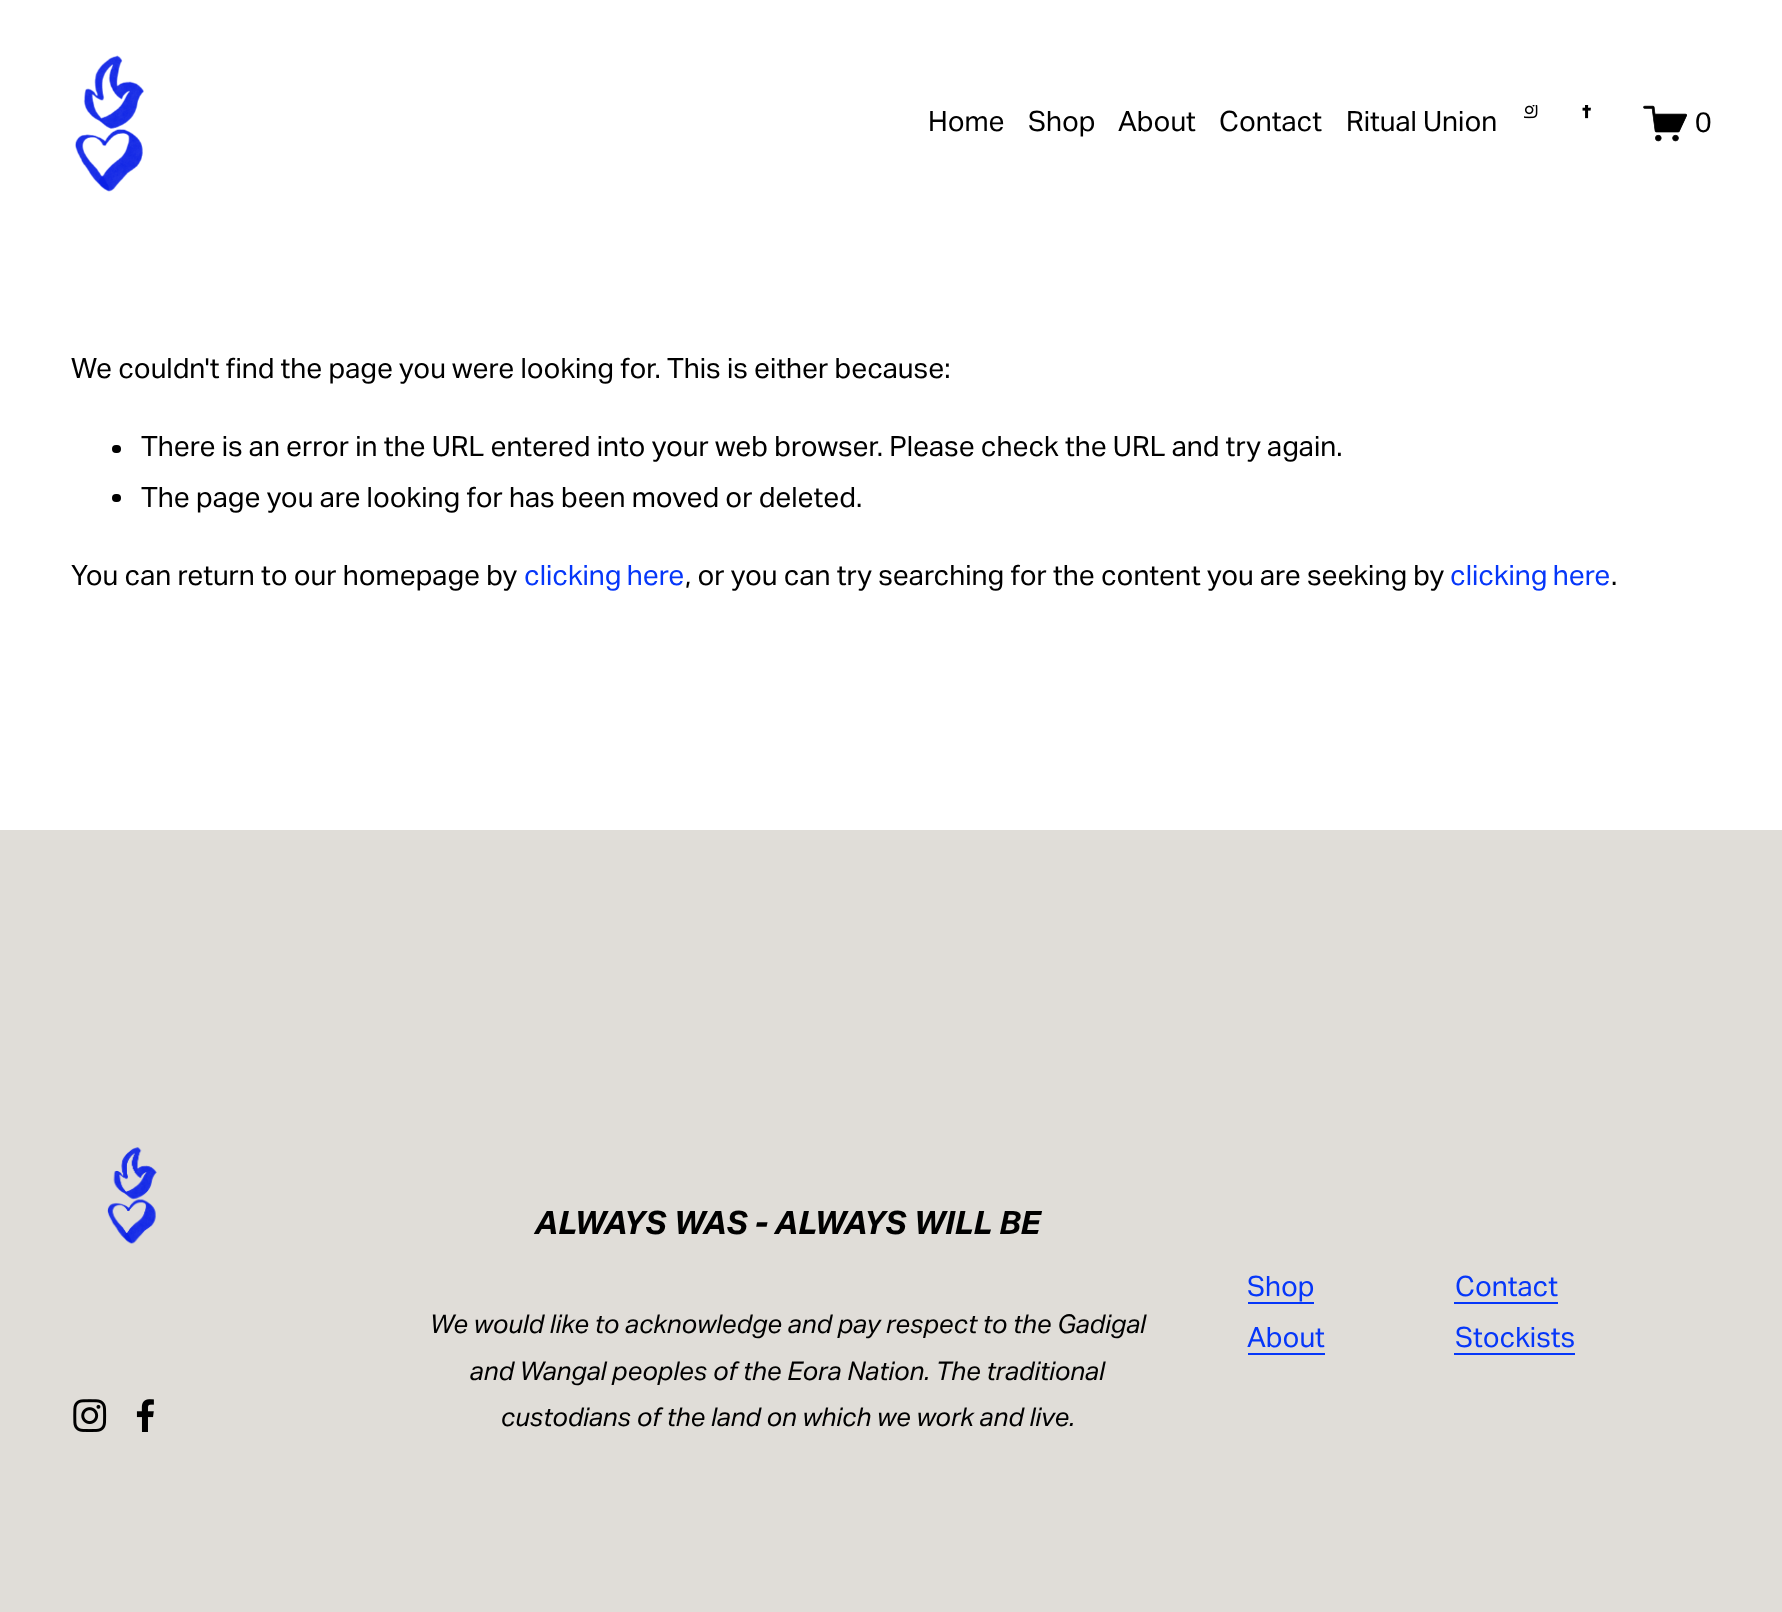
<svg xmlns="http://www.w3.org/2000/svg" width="1782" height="1612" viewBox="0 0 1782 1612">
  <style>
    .t1 { font: 28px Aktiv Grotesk; fill: #000; }
    .t2 { font: 28px Aktiv Grotesk; fill: #0637f9; }
    .t3 { font: italic bold 32.25px Aktiv Grotesk; fill: #000; }
    .t4 { font: italic 25.85px Aktiv Grotesk; fill: #000; }
  </style>
  <rect width="100%" height="100%" fill="#fff"/>
  <image x="75" y="55" width="69" height="137" href="images/1.png"/>
  <text x="928" y="131" class="t1">Home</text>
  <text x="1028" y="131" class="t1">Shop</text>
  <text x="1118" y="131" class="t1">About</text>
  <text x="1219" y="131" class="t1">Contact</text>
  <text x="1346" y="131" class="t1">Ritual Union</text>
  <image x="1524" y="105" width="14" height="14" href="images/2.png"/>
  <image x="1582" y="105" width="9" height="14" href="images/3.png"/>
  <image x="1643" y="105" width="44" height="37" href="images/4.png"/>
  <text x="1695" y="132" class="t1">0</text>
  <text x="71" y="378" class="t1">We couldn't find the page you were looking for. This is either because:</text>
  <rect x="112" y="445" width="9" height="8" rx="4" fill="#000"/>
  <text x="141" y="456" class="t1">There is an error in the URL entered into your web browser. Please check the URL and try again.</text>
  <rect x="112" y="494" width="9" height="8" rx="4" fill="#000"/>
  <text x="141" y="507" class="t1">The page you are looking for has been moved or deleted.</text>
  <text x="71" y="585" class="t1">You can return to our homepage by</text>
  <text x="524" y="585" word-spacing="-1" class="t2">clicking here</text>
  <text x="685" y="585" class="t1">, or you can try searching for the content you are seeking by</text>
  <text x="1450" y="585" word-spacing="-1" class="t2">clicking here</text>
  <text x="1611" y="585" class="t1">.</text>
  <rect x="0" y="830" width="1782" height="782" fill="#e0ddd8"/>
  <image x="107" y="1147" width="50" height="97" href="images/5.png"/>
  <text x="535" y="1234" class="t3">ALWAYS WAS - ALWAYS WILL BE</text>
  <text x="430" y="1333" class="t4">We would like to acknowledge and pay respect to the Gadigal</text>
  <text x="470" y="1380" class="t4">and Wangal peoples of the Eora Nation. The traditional</text>
  <text x="501" y="1426" class="t4">custodians of the land on which we work and live.</text>
  <text x="1247" y="1296" class="t2">Shop</text>
  <rect x="1248" y="1302" width="66" height="2" fill="#0637f9"/>
  <text x="1247" y="1347" class="t2">About</text>
  <rect x="1248" y="1353" width="77" height="2" fill="#0637f9"/>
  <text x="1455" y="1296" class="t2">Contact</text>
  <rect x="1454" y="1302" width="104" height="2" fill="#0637f9"/>
  <text x="1455" y="1347" class="t2">Stockists</text>
  <rect x="1454" y="1353" width="121" height="2" fill="#0637f9"/>
  <image x="73" y="1399" width="34" height="33" href="images/6.png"/>
  <image x="136" y="1399" width="18" height="33" href="images/7.png"/>
</svg>
